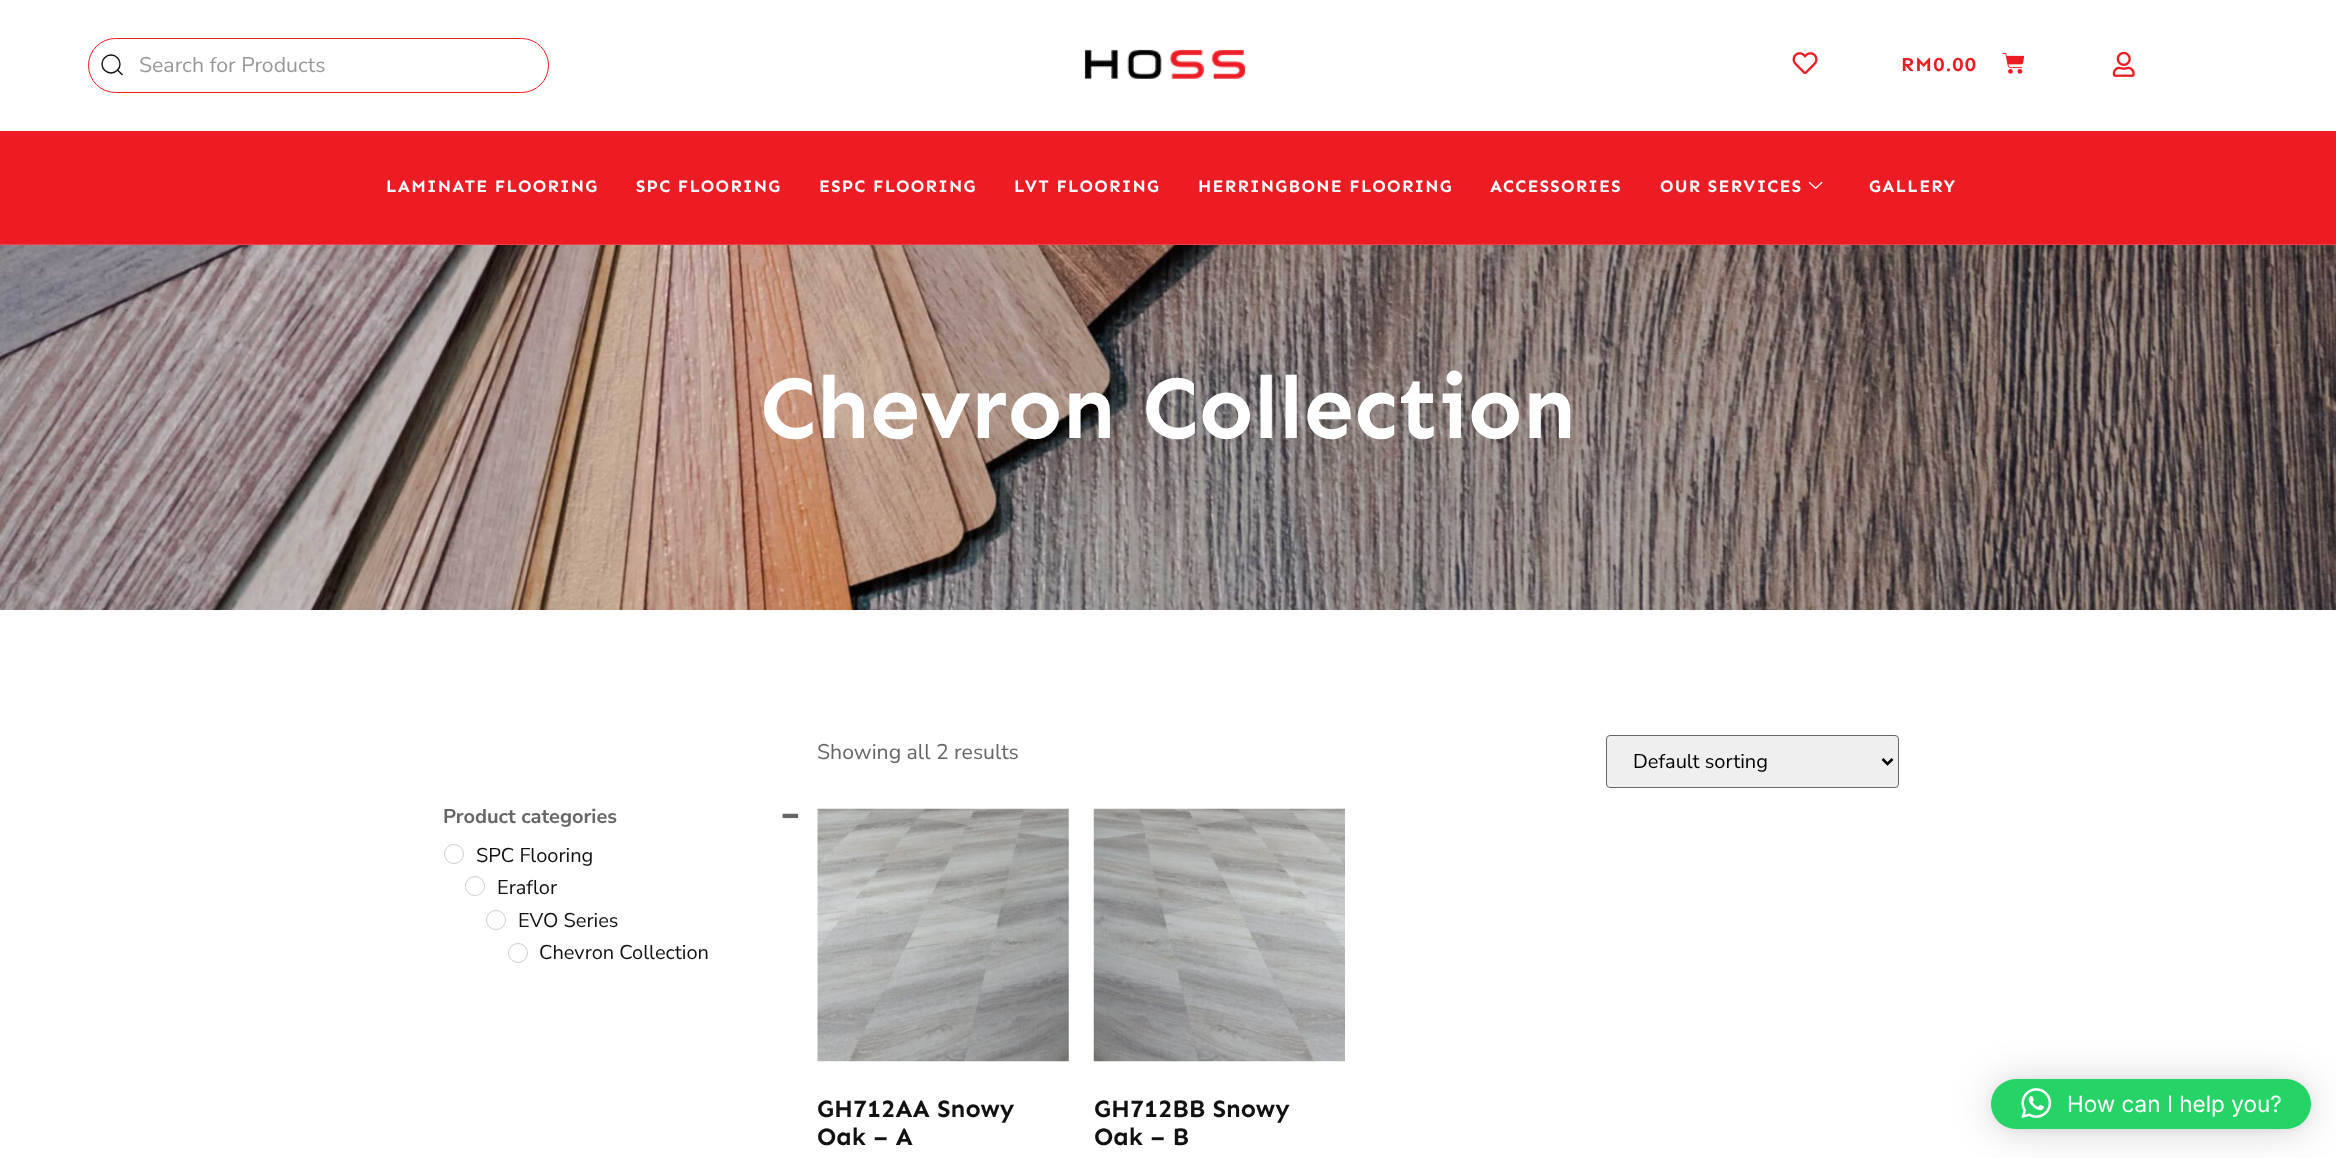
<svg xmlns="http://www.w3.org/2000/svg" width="2336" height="1158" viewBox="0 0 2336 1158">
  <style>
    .t1 { font: 21.25px Nunito Sans; fill: #999; }
    .t2 { font: bold 20px Sen; letter-spacing: 1.25px; fill: #ed1c24; }
    .t3 { font: bold 17.5px Sen; letter-spacing: 1.25px; fill: #fff; }
    .t4 { font: bold 90px Sen; fill: #fff; }
    .t5 { font: bold 20px Nunito Sans; fill: #666; }
    .t6 { font: 20px Nunito Sans; fill: #111; }
    .t7 { font: 21.25px Nunito Sans; fill: #666; }
    .t8 { font: 20px Nunito Sans; fill: #000; }
    .t9 { font: bold 25px Sen; fill: #111; }
    .t10 { font: 22.5px Inter; fill: #fff; }
  </style>
  <rect width="100%" height="100%" fill="#fff"/>
  <rect x="0" y="130" width="2336" height="1" fill="#fafafa"/>
  <rect x="88.5" y="38.5" width="460" height="54" rx="27" fill="none" stroke="#ed1c24"/>
  <circle cx="111" cy="64" r="9" fill="none" stroke="#111" stroke-width="1.4"/>
  <path d="M117.5 70L122.5 75Z" fill="none" stroke="#111" stroke-width="1.4"/>
  <text x="139" y="72" class="t1">Search for Products</text>
  <image x="1084" y="49" width="162" height="30" href="images/1.png"/>
  <image x="1792" y="52" width="26" height="22" href="images/2.png"/>
  <text x="1901" y="71" class="t2">RM0.00</text>
  <image x="2002" y="53" width="22" height="21" href="images/3.png"/>
  <image x="2112" y="51" width="23" height="26" href="images/4.png"/>
  <rect x="0" y="131" width="2336" height="113" fill="#ed1c24"/>
  <rect x="0" y="244" width="2336" height="1" fill="#eb4249"/>
  <text x="386" y="192" class="t3">LAMINATE FLOORING</text>
  <text x="636" y="192" class="t3">SPC FLOORING</text>
  <text x="819" y="192" class="t3">ESPC FLOORING</text>
  <text x="1014" y="192" class="t3">LVT FLOORING</text>
  <text x="1198" y="192" class="t3">HERRINGBONE FLOORING</text>
  <text x="1490" y="192" class="t3">ACCESSORIES</text>
  <text x="1660" y="192" class="t3">OUR SERVICES</text>
  <image x="1808" y="181" width="15" height="8" href="images/5.png"/>
  <text x="1869" y="192" class="t3">GALLERY</text>
  <image x="0" y="245" width="2336" height="365" href="images/6.png"/>
  <text x="760" y="438" class="t4">Chevron Collection</text>
  <text x="443" y="823" class="t5">Product categories</text>
  <image x="782" y="813" width="17" height="6" href="images/7.png"/>
  <circle cx="454" cy="854" r="9.5" fill="none" stroke="#ccc"/>
  <text x="476" y="862" class="t6">SPC Flooring</text>
  <circle cx="475" cy="886" r="9.5" fill="none" stroke="#ccc"/>
  <text x="497" y="894" class="t6">Eraflor</text>
  <circle cx="496" cy="920" r="9.5" fill="none" stroke="#ccc"/>
  <text x="518" y="927" class="t6">EVO Series</text>
  <circle cx="518" cy="953" r="9.5" fill="none" stroke="#ccc"/>
  <text x="539" y="959" class="t6">Chevron Collection</text>
  <text x="817" y="759" class="t7">Showing all 2 results</text>
  <rect x="1606.5" y="735.5" width="292" height="52" rx="3.5" fill="#efefef" stroke="#666"/>
  <path d="M1882.5 759L1887.5 764L1892.5 759" fill="none" stroke="#000" stroke-width="2.5"/>
  <text x="1633" y="768" class="t8">Default sorting</text>
  <image x="817" y="808" width="252" height="254" href="images/8.png"/>
  <text x="817" y="1117" class="t9">GH712AA Snowy</text>
  <text x="817" y="1145" class="t9">Oak – A</text>
  <image x="1093" y="808" width="252" height="254" href="images/9.png"/>
  <text x="1094" y="1117" class="t9">GH712BB Snowy</text>
  <text x="1094" y="1145" class="t9">Oak – B</text>
  <rect x="1991" y="1081" width="320" height="50" rx="25" fill="#00000029" filter="blur(20px)"/>
  <rect x="1991" y="1080" width="320" height="50" rx="25" fill="#0000000f" filter="blur(4px)"/>
  <rect x="1991" y="1079" width="320" height="50" rx="25" fill="#25d366"/>
  <image x="2021" y="1088" width="31" height="31" href="images/10.png"/>
  <text x="2067" y="1112" class="t10">How can I help you?</text>
</svg>
